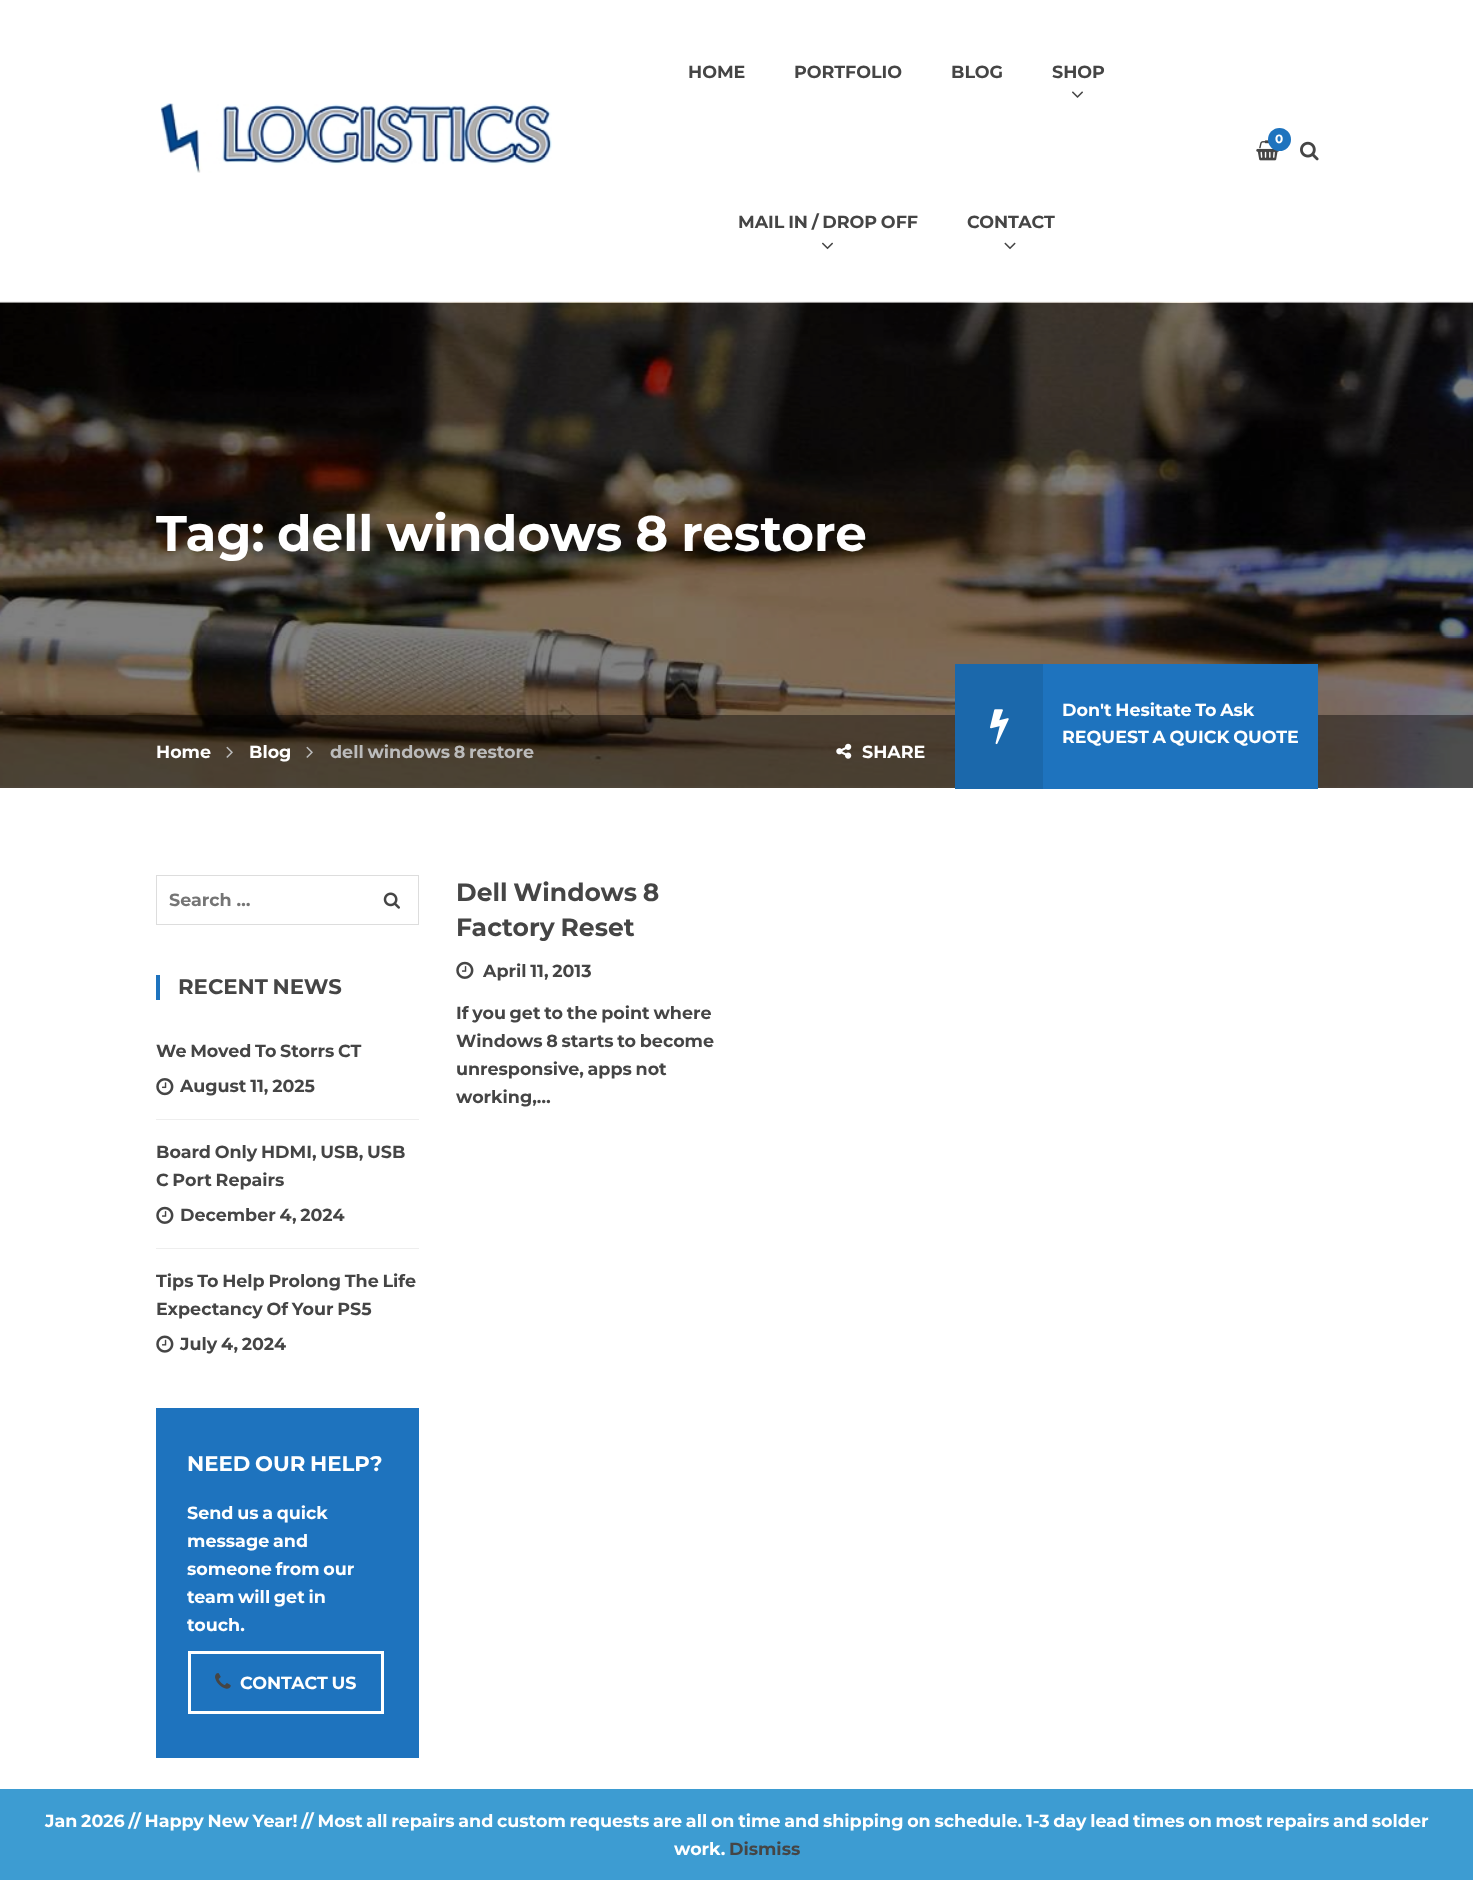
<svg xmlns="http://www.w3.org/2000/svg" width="1473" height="1880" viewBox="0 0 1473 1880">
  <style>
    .t1 { font: bold 17.5px Montserrat; fill: #454545; }
    .t2 { font: bold 12px Montserrat; fill: #fff; }
    .t3 { font: bold 50px Montserrat; fill: #fff; }
    .t4 { font: bold 17.5px Montserrat; fill: #fff; }
    .t5 { font: bold 17.5px Montserrat; fill: #bbb; }
    .t6 { font: bold 17.5px Montserrat; fill: #757575; }
    .t7 { font: bold 21.25px Montserrat; fill: #454545; }
    .t8 { font: bold 21.25px Montserrat; fill: #fff; }
    .t9 { font: bold 25px Montserrat; fill: #454545; }
  </style>
  <defs>
    <clipPath id="clip1"><rect x="156" y="504" width="1163" height="60"/></clipPath>
  </defs>
  <rect width="100%" height="100%" fill="#fff"/>
  <image x="160" y="103" width="392" height="70" href="images/1.png"/>
  <text x="688" y="78" class="t1">HOME</text>
  <text x="794" y="78" class="t1">PORTFOLIO</text>
  <text x="951" y="78" class="t1">BLOG</text>
  <text x="1052" y="78" class="t1">SHOP</text>
  <image x="1072" y="91" width="11" height="7" href="images/2.png"/>
  <text x="738" y="228" word-spacing="-1.25" class="t1">MAIL IN / DROP OFF</text>
  <image x="822" y="242" width="11" height="8" href="images/3.png"/>
  <text x="967" y="228" class="t1">CONTACT</text>
  <image x="1004" y="242" width="12" height="8" href="images/4.png"/>
  <image x="1256" y="140" width="24" height="21" href="images/5.png"/>
  <circle cx="1279.5" cy="139.5" r="11.5" fill="#1e73be"/>
  <text x="1275" y="143" class="t2">0</text>
  <image x="1300" y="141" width="19" height="20" href="images/6.png"/>
  <image x="0" y="301" width="1473" height="487" href="images/7.png"/>
  <g clip-path="url(#clip1)">
    <text x="156" y="551" class="t3">Tag:</text>
  </g>
  <text x="277" y="551" word-spacing="-1.25" class="t3">dell windows 8 restore</text>
  <rect x="0" y="715" width="1473" height="73" fill="#00000066"/>
  <rect x="1043" y="664" width="275" height="125" fill="#1e73be"/>
  <rect x="955" y="664" width="88" height="125" fill="#1b68ab"/>
  <image x="990" y="709" width="19" height="36" href="images/8.png"/>
  <text x="1062" y="716" word-spacing="-1.25" class="t4">Don't Hesitate To Ask</text>
  <text x="1062" y="743" word-spacing="-1.25" class="t4">REQUEST A QUICK QUOTE</text>
  <text x="156" y="758" class="t4">Home</text>
  <image x="226" y="746" width="7" height="12" href="images/9.png"/>
  <text x="249" y="758" class="t4">Blog</text>
  <image x="306" y="746" width="7" height="12" href="images/10.png"/>
  <text x="330" y="758" word-spacing="-1.25" class="t5">dell windows 8 restore</text>
  <image x="836" y="743" width="16" height="16" href="images/11.png"/>
  <text x="862" y="758" class="t4">SHARE</text>
  <rect x="156.5" y="875.5" width="262" height="49" fill="none" stroke="#ddd"/>
  <text x="169" y="906" class="t6">Search …</text>
  <image x="383" y="892" width="17" height="17" href="images/12.png"/>
  <rect x="156" y="975" width="4" height="25" fill="#1e73be"/>
  <text x="178" y="994" word-spacing="-1.25" class="t7">RECENT NEWS</text>
  <rect x="156" y="1119" width="263" height="1" fill="#eee"/>
  <text x="156" y="1057" word-spacing="-1.25" class="t1">We Moved To Storrs CT</text>
  <image x="156" y="1078" width="18" height="18" href="images/13.png"/>
  <text x="180" y="1092" word-spacing="-1.25" class="t1">August 11, 2025</text>
  <rect x="156" y="1248" width="263" height="1" fill="#eee"/>
  <text x="156" y="1158" word-spacing="-1.25" class="t1">Board Only HDMI, USB, USB</text>
  <text x="156" y="1186" word-spacing="-1.25" class="t1">C Port Repairs</text>
  <image x="156" y="1206" width="18" height="18" href="images/14.png"/>
  <text x="180" y="1221" word-spacing="-1.25" class="t1">December 4, 2024</text>
  <text x="156" y="1287" word-spacing="-1.25" class="t1">Tips To Help Prolong The Life</text>
  <text x="156" y="1315" word-spacing="-1.25" class="t1">Expectancy Of Your PS5</text>
  <image x="156" y="1335" width="18" height="18" href="images/15.png"/>
  <text x="180" y="1350" word-spacing="-1.25" class="t1">July 4, 2024</text>
  <rect x="156" y="1408" width="263" height="350" fill="#1e73be"/>
  <text x="187" y="1471" word-spacing="-1.25" class="t8">NEED OUR HELP?</text>
  <text x="187" y="1519" word-spacing="-1.25" class="t4">Send us a quick</text>
  <text x="187" y="1547" word-spacing="-1.25" class="t4">message and</text>
  <text x="187" y="1575" word-spacing="-1.25" class="t4">someone from our</text>
  <text x="187" y="1603" word-spacing="-1.25" class="t4">team will get in</text>
  <text x="187" y="1631" class="t4">touch.</text>
  <rect x="189.5" y="1652.5" width="193" height="60" fill="none" stroke="#fff" stroke-width="3"/>
  <image x="215" y="1673" width="16" height="16" href="images/16.png"/>
  <text x="240" y="1689" word-spacing="-1.25" class="t4">CONTACT US</text>
  <text x="456" y="901" word-spacing="-1.25" class="t9">Dell Windows 8</text>
  <text x="456" y="936" word-spacing="-1.25" class="t9">Factory Reset</text>
  <image x="456" y="961" width="18" height="18" href="images/14.png"/>
  <text x="483" y="977" word-spacing="-1.25" class="t1">April 11, 2013</text>
  <text x="456" y="1019" word-spacing="-1.25" class="t1">If you get to the point where</text>
  <text x="456" y="1047" word-spacing="-1.25" class="t1">Windows 8 starts to become</text>
  <text x="456" y="1075" word-spacing="-1.25" class="t1">unresponsive, apps not</text>
  <text x="456" y="1103" class="t1">working,…</text>
  <rect x="0" y="1789" width="1473" height="91" fill="#3d9cd2"/>
  <text x="45" y="1827" word-spacing="-1.25" class="t4">Jan 2026 // Happy New Year! // Most all repairs and custom requests are all on time and shipping on schedule.</text>
  <text x="1026" y="1827" word-spacing="-1.25" class="t4">1-3 day lead times on most repairs and solder</text>
  <text x="674" y="1855" class="t4">work.</text>
  <text x="729" y="1855" class="t1">Dismiss</text>
</svg>
